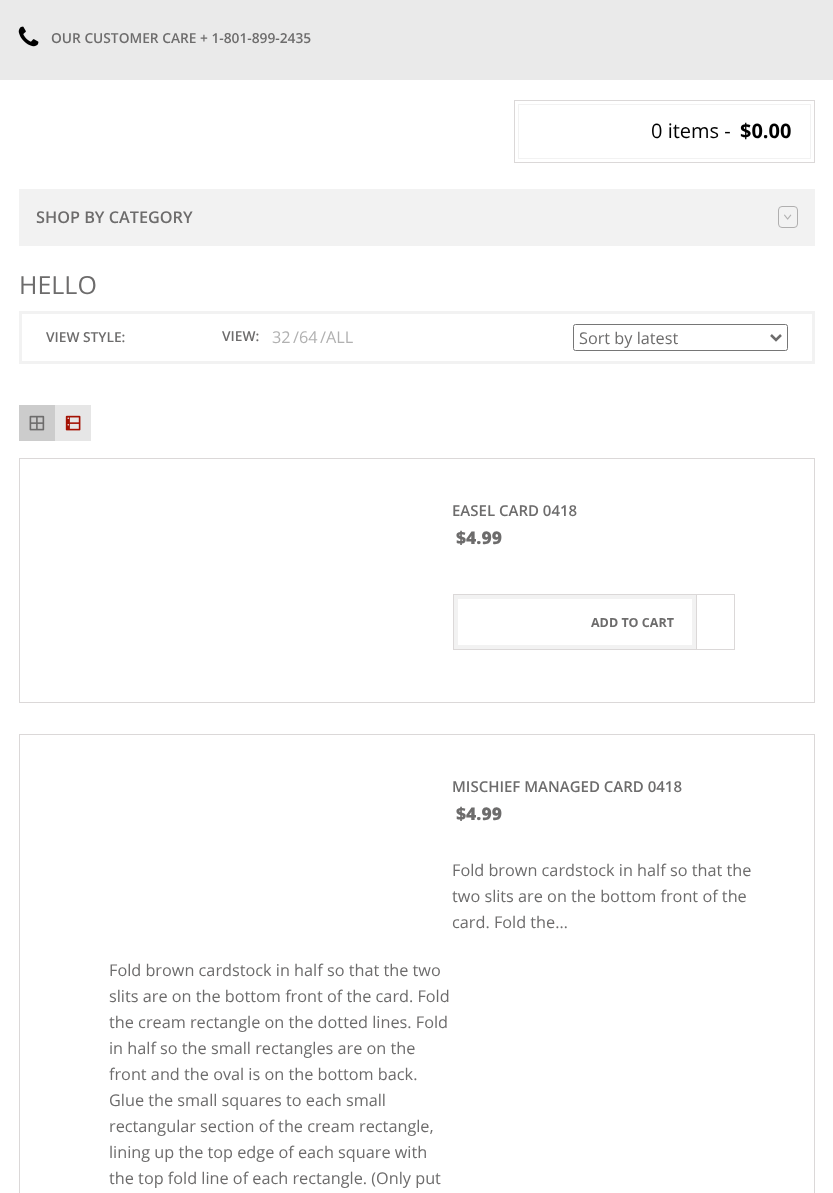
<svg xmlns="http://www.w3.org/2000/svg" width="833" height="1193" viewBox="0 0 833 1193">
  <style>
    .t1 { font: 600 13.75px Open Sans; fill: #6d6c6c; }
    .t2 { font: 20px Open Sans; fill: #000; }
    .t3 { font: bold 20px Open Sans; fill: #000; }
    .t4 { font: 600 16.25px Open Sans; fill: #6d6c6c; }
    .t5 { font: 25px Open Sans; fill: #6d6c6c; }
    .t6 { font: 16.25px Open Sans; fill: #b1b1b1; }
    .t7 { font: 16.25px Open Sans; fill: #6d6c6c; }
    .t8 { font: 600 15px Open Sans; fill: #6d6c6c; }
    .t9 { font: 800 17.5px Open Sans; fill: #6d6c6c; }
    .t10 { font: bold 12.5px Open Sans; fill: #6d6c6c; }
  </style>
  <rect width="100%" height="100%" fill="#fff"/>
  <rect x="0" y="0" width="833" height="80" fill="#eaeaea"/>
  <image x="18" y="26" width="21" height="21" href="images/1.png"/>
  <text x="51" y="43" class="t1">OUR CUSTOMER CARE + 1-801-899-2435</text>
  <rect x="514.5" y="100.5" width="300" height="62" fill="none" stroke="#dbd8d8"/>
  <rect x="518.5" y="104.5" width="292" height="54" fill="none" stroke="#f2f2f2"/>
  <text x="651" y="138" class="t2">0 items -</text>
  <text x="740" y="138" class="t3">$0.00</text>
  <rect x="19" y="189" width="796" height="57" fill="#f2f2f2"/>
  <text x="36" y="223" class="t4">SHOP BY CATEGORY</text>
  <rect x="778.5" y="206.5" width="19" height="21" rx="3.5" fill="none" stroke="#b0afaf"/>
  <image x="784" y="214" width="8" height="6" href="images/2.png"/>
  <text x="19" y="294" class="t5">HELLO</text>
  <rect x="20.5" y="312.5" width="793" height="50" fill="none" stroke="#f2f2f2" stroke-width="3"/>
  <text x="46" y="342" class="t1">VIEW STYLE:</text>
  <text x="222" y="341" class="t1">VIEW:</text>
  <text x="272" y="343" class="t6">32</text>
  <text x="293" y="343" class="t6">/64</text>
  <text x="320" y="343" class="t6">/ALL</text>
  <rect x="573.5" y="324.5" width="214" height="26" rx="2" fill="none" stroke="#767676"/>
  <path d="M771 335L776 340L781 335" fill="none" stroke="#6d6c6c" stroke-width="2.5"/>
  <text x="579" y="344" class="t7">Sort by latest</text>
  <rect x="19" y="405" width="36" height="36" fill="#ccc"/>
  <image x="29" y="415" width="16" height="16" href="images/3.png"/>
  <rect x="55" y="405" width="36" height="36" fill="#e6e6e6"/>
  <image x="65" y="415" width="16" height="16" href="images/4.png"/>
  <rect x="19.5" y="458.5" width="795" height="244" fill="none" stroke="#dbd8d8"/>
  <text x="452" y="516" class="t8">EASEL CARD 0418</text>
  <text x="456" y="544" class="t9">$4.99</text>
  <rect x="453.5" y="594.5" width="281" height="55" fill="none" stroke="#dbd8d8"/>
  <rect x="456" y="597" width="238" height="50" fill="none" stroke="#f2f2f2" stroke-width="4"/>
  <text x="591" y="627" class="t10">ADD TO CART</text>
  <rect x="696" y="595" width="1" height="54" fill="#dbd8d8"/>
  <rect x="19.5" y="734.5" width="795" height="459" fill="none" stroke="#dbd8d8"/>
  <text x="452" y="792" class="t8">MISCHIEF MANAGED CARD 0418</text>
  <text x="456" y="820" class="t9">$4.99</text>
  <text x="452" y="876" class="t7">Fold brown cardstock in half so that the</text>
  <text x="452" y="902" class="t7">two slits are on the bottom front of the</text>
  <text x="452" y="928" class="t7">card. Fold the…</text>
  <text x="109" y="976" class="t7">Fold brown cardstock in half so that the two</text>
  <text x="109" y="1002" class="t7">slits are on the bottom front of the card. Fold</text>
  <text x="109" y="1028" class="t7">the cream rectangle on the dotted lines. Fold</text>
  <text x="109" y="1054" class="t7">in half so the small rectangles are on the</text>
  <text x="109" y="1080" class="t7">front and the oval is on the bottom back.</text>
  <text x="109" y="1106" class="t7">Glue the small squares to each small</text>
  <text x="109" y="1132" class="t7">rectangular section of the cream rectangle,</text>
  <text x="109" y="1158" class="t7">lining up the top edge of each square with</text>
  <text x="109" y="1184" class="t7">the top fold line of each rectangle. (Only put</text>
</svg>
